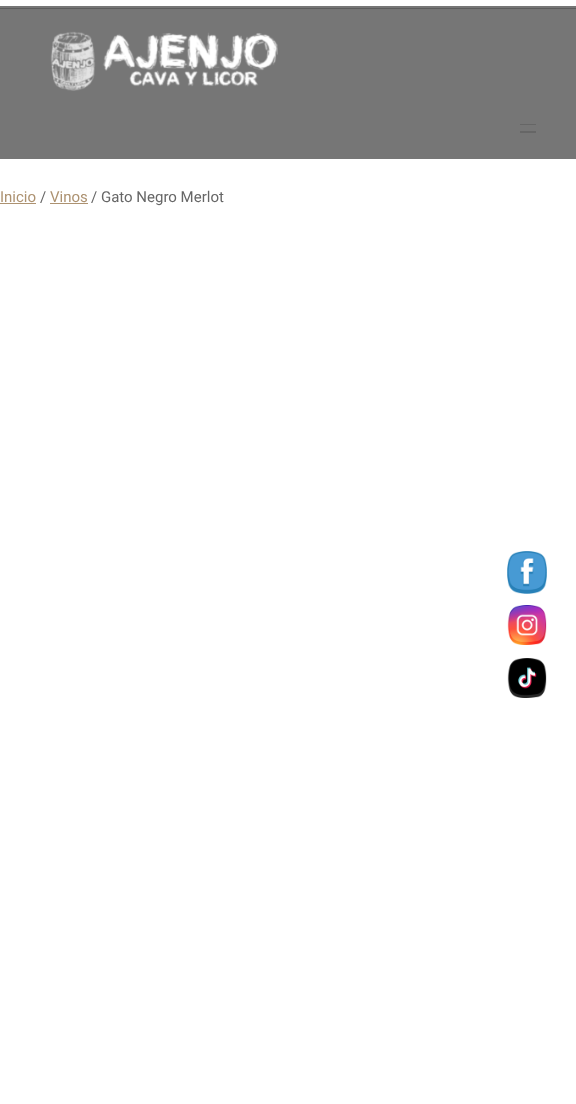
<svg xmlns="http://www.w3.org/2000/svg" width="576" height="1104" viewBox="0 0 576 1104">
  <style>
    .t1 { font: 15px Roboto; fill: #ad9271; }
    .t2 { font: 15px Roboto; fill: #666; }
  </style>
  <rect width="100%" height="100%" fill="#fff"/>
  <rect x="0" y="6" width="576" height="153" fill="#767676"/>
  <rect x="0" y="8" width="576" height="1" fill="#5d5d5d"/>
  <image x="50" y="31" width="228" height="60" href="images/1.png"/>
  <rect x="520" y="124" width="16" height="1" fill="#666"/>
  <rect x="520" y="131" width="16" height="2" fill="#666"/>
  <text x="0" y="202" class="t1">Inicio</text>
  <rect x="0" y="203" width="36" height="1" fill="#ad9271"/>
  <text x="40" y="202" class="t2">/</text>
  <text x="50" y="202" class="t1">Vinos</text>
  <rect x="50" y="203" width="38" height="1" fill="#ad9271"/>
  <text x="91" y="202" class="t2">/ Gato Negro Merlot</text>
  <image x="507" y="551" width="40" height="43" href="images/2.png"/>
  <image x="507" y="605" width="40" height="40" href="images/3.png"/>
  <image x="507" y="658" width="40" height="40" href="images/4.png"/>
</svg>
